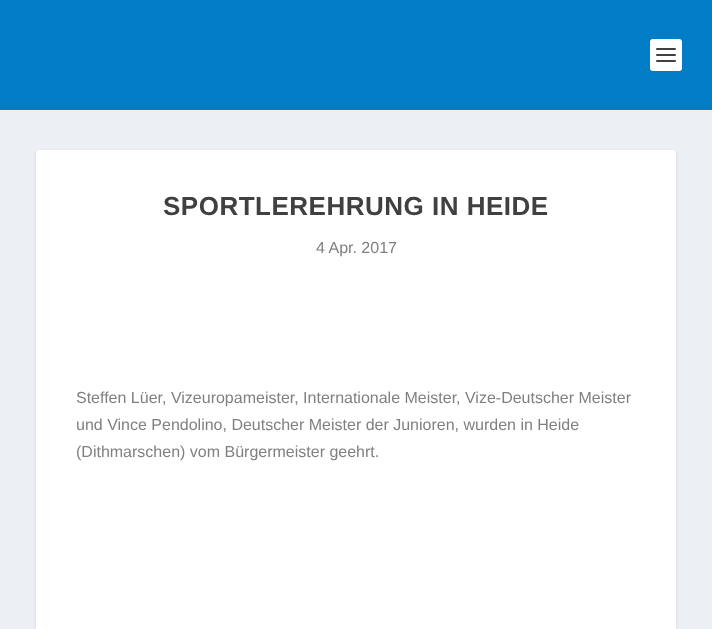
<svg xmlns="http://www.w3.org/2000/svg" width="712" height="629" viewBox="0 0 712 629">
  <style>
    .t1 { font: bold 26px Liberation Sans; letter-spacing: 0.5px; fill: #404040; }
    .t2 { font: 16px Liberation Sans; fill: #808080; }
  </style>
  <rect width="100%" height="100%" fill="#ecf0f5"/>
  <rect x="0" y="0" width="712" height="110" fill="#007dc6"/>
  <rect x="650" y="39" width="32" height="32" rx="3" fill="#fff"/>
  <rect x="656" y="48" width="20" height="2" rx="1" fill="#404040"/>
  <rect x="656" y="54" width="20" height="2" rx="1" fill="#404040"/>
  <rect x="656" y="60" width="20" height="2" rx="1" fill="#404040"/>
  <rect x="36" y="151" width="640" height="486" rx="3" fill="#0000001a" filter="blur(1.5px)"/>
  <rect x="36" y="150" width="640" height="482" rx="3" fill="#fff"/>
  <text x="163" y="215" class="t1">SPORTLEREHRUNG IN HEIDE</text>
  <text x="316" y="253" class="t2">4 Apr. 2017</text>
  <text x="76" y="403" class="t2">Steffen Lüer, Vizeuropameister, Internationale Meister, Vize-Deutscher Meister</text>
  <text x="76" y="430" class="t2">und Vince Pendolino, Deutscher Meister der Junioren, wurden in Heide</text>
  <text x="76" y="457" class="t2">(Dithmarschen) vom Bürgermeister geehrt.</text>
</svg>
